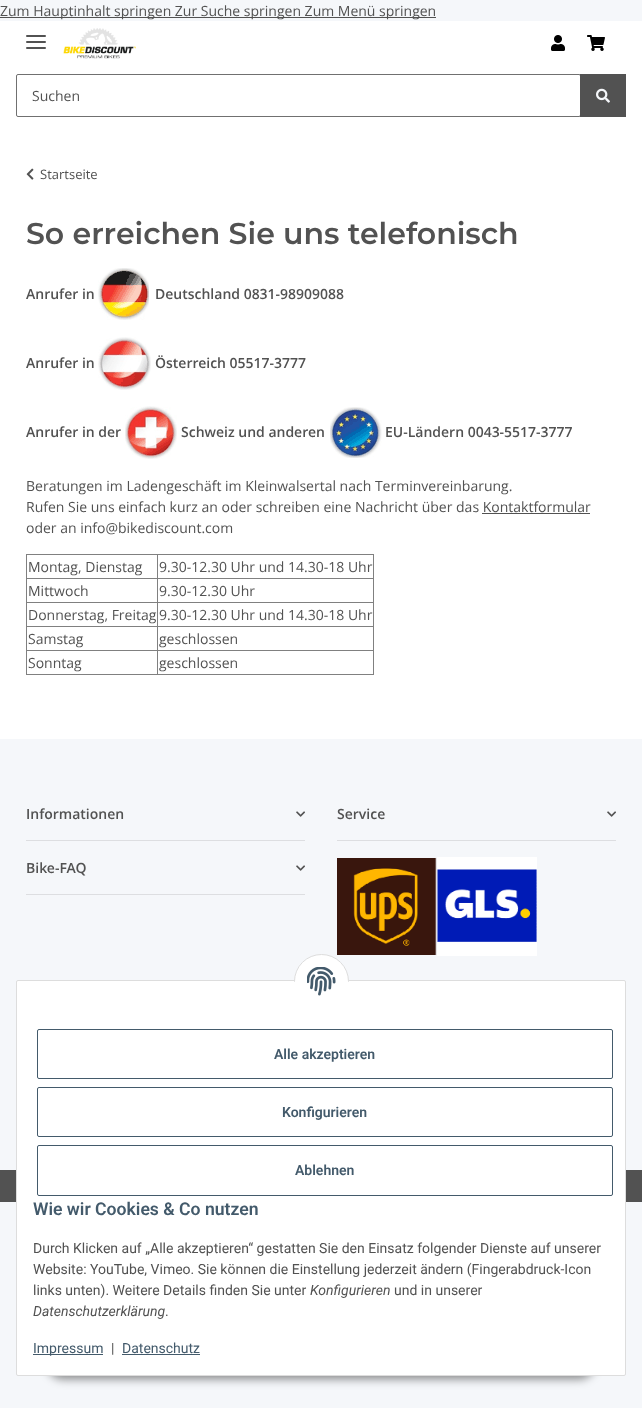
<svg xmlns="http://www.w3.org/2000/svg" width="642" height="1408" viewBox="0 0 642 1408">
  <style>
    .t1 { font: 14px Open Sans; fill: #525252; }
    .t2 { font: 13px Open Sans; fill: #525252; }
    .t3 { font: 600 30px Montserrat; fill: #525252; }
    .t4 { font: 600 14px Open Sans; fill: #525252; }
    .t5 { font: 600 14px Roboto; fill: #435a6b; }
    .t6 { font: 600 17.6px Roboto; fill: #435a6b; }
    .t7 { font: 14px Roboto; fill: #525252; }
    .t8 { font: italic 14px Roboto; fill: #525252; }
    .t9 { font: 14px Roboto; fill: #435a6b; }
  </style>
  <rect width="100%" height="100%" fill="#f5f7fa"/>
  <rect x="0" y="17" width="436" height="1" fill="#525252"/>
  <text x="0" y="16" class="t1">Zum Hauptinhalt springen Zur Suche springen Zum Menü springen</text>
  <rect x="0" y="21" width="642" height="718" fill="#fff"/>
  <rect x="26" y="41" width="20" height="2" rx="1" fill="#525252"/>
  <rect x="26" y="35" width="20" height="2" rx="1" fill="#525252"/>
  <rect x="26" y="47" width="20" height="2" rx="1" fill="#525252"/>
  <image x="63" y="28" width="73" height="31" href="images/1.png"/>
  <image x="551" y="35" width="14" height="16" href="images/2.png"/>
  <image x="587" y="35" width="18" height="16" href="images/3.png"/>
  <rect x="16.5" y="74.5" width="564" height="42" rx="1.5" fill="none" stroke="#707070"/>
  <text x="32" y="101" class="t1">Suchen</text>
  <rect x="580" y="74" width="46" height="43" fill="#525252"/>
  <image x="596" y="88" width="14" height="15" href="images/4.png"/>
  <image x="26" y="168" width="8" height="12" href="images/5.png"/>
  <text x="40" y="179" class="t2">Startseite</text>
  <text x="26" y="244" class="t3">So erreichen Sie uns telefonisch</text>
  <text x="26" y="299" class="t4">Anrufer in</text>
  <image x="98" y="268" width="51" height="52" href="images/6.png"/>
  <text x="155" y="299" class="t4">Deutschland 0831-98909088</text>
  <text x="26" y="368" class="t4">Anrufer in</text>
  <image x="98" y="337" width="53" height="53" href="images/7.png"/>
  <text x="155" y="368" class="t4">Österreich 05517-3777</text>
  <text x="26" y="437" class="t4">Anrufer in der</text>
  <image x="125" y="406" width="52" height="53" href="images/8.png"/>
  <text x="181" y="437" class="t4">Schweiz und anderen</text>
  <image x="330" y="407" width="52" height="51" href="images/9.png"/>
  <text x="385" y="437" class="t4">EU-Ländern 0043-5517-3777</text>
  <text x="26" y="491" class="t1">Beratungen im Ladengeschäft im Kleinwalsertal nach Terminvereinbarung.</text>
  <text x="26" y="512" class="t1">Rufen Sie uns einfach kurz an oder schreiben eine Nachricht über das Kontaktformular</text>
  <rect x="482" y="513" width="108" height="1" fill="#525252"/>
  <text x="26" y="533" class="t1">oder an info@bikediscount.com</text>
  <rect x="26" y="554" width="348" height="1" fill="#808080"/>
  <rect x="373" y="554" width="1" height="121" fill="#808080"/>
  <rect x="26" y="674" width="348" height="1" fill="#808080"/>
  <rect x="26" y="554" width="1" height="121" fill="#808080"/>
  <text x="28" y="572" class="t1">Montag, Dienstag</text>
  <rect x="157" y="578" width="217" height="1" fill="#808080"/>
  <rect x="157" y="602" width="217" height="1" fill="#808080"/>
  <rect x="157" y="626" width="217" height="1" fill="#808080"/>
  <rect x="157" y="650" width="217" height="1" fill="#808080"/>
  <rect x="157" y="650" width="1" height="25" fill="#808080"/>
  <rect x="26" y="650" width="132" height="1" fill="#808080"/>
  <rect x="157" y="626" width="1" height="25" fill="#808080"/>
  <rect x="26" y="626" width="132" height="1" fill="#808080"/>
  <rect x="157" y="602" width="1" height="25" fill="#808080"/>
  <rect x="26" y="602" width="132" height="1" fill="#808080"/>
  <rect x="157" y="578" width="1" height="25" fill="#808080"/>
  <rect x="26" y="578" width="132" height="1" fill="#808080"/>
  <rect x="157" y="554" width="1" height="25" fill="#808080"/>
  <text x="159" y="572" class="t1">9.30-12.30 Uhr und 14.30-18 Uhr</text>
  <text x="28" y="596" class="t1">Mittwoch</text>
  <text x="159" y="596" class="t1">9.30-12.30 Uhr</text>
  <text x="28" y="620" class="t1">Donnerstag, Freitag</text>
  <text x="159" y="620" class="t1">9.30-12.30 Uhr und 14.30-18 Uhr</text>
  <text x="28" y="644" class="t1">Samstag</text>
  <text x="159" y="644" class="t1">geschlossen</text>
  <text x="28" y="668" class="t1">Sonntag</text>
  <text x="159" y="668" class="t1">geschlossen</text>
  <text x="26" y="819" class="t4">Informationen</text>
  <image x="296" y="811" width="9" height="6" href="images/10.png"/>
  <rect x="26" y="840" width="279" height="1" fill="#dddee1"/>
  <text x="337" y="819" class="t4">Service</text>
  <image x="607" y="811" width="9" height="6" href="images/10.png"/>
  <rect x="337" y="840" width="279" height="1" fill="#dddee1"/>
  <text x="26" y="873" class="t4">Bike-FAQ</text>
  <image x="296" y="865" width="9" height="6" href="images/10.png"/>
  <rect x="26" y="894" width="279" height="1" fill="#dddee1"/>
  <image x="337" y="858" width="100" height="97" href="images/11.png"/>
  <image x="437" y="857" width="100" height="99" href="images/12.png"/>
  <rect x="0" y="1170" width="642" height="32" fill="#525252"/>
  <rect x="47" y="1347" width="548" height="32" rx="16" fill="#00000073" filter="blur(5px)"/>
  <rect x="16.5" y="980.5" width="609" height="395" rx="1.5" fill="#fff" stroke="#ddd"/>
  <circle cx="321.5" cy="981.5" r="27" fill="#fff" stroke="#ddd"/>
  <rect x="294" y="982" width="55" height="27" fill="#fff"/>
  <image x="307" y="967" width="29" height="29" href="images/13.png"/>
  <rect x="37.5" y="1029.5" width="575" height="49" rx="1.5" fill="none" stroke="#435a6b"/>
  <text x="274" y="1059" class="t5">Alle akzeptieren</text>
  <rect x="37.5" y="1087.5" width="575" height="49" rx="1.5" fill="none" stroke="#435a6b"/>
  <text x="282" y="1117" class="t5">Konfigurieren</text>
  <rect x="37.5" y="1145.5" width="575" height="50" rx="1.5" fill="none" stroke="#435a6b"/>
  <text x="295" y="1175" class="t5">Ablehnen</text>
  <text x="33" y="1215" class="t6">Wie wir Cookies &amp; Co nutzen</text>
  <text x="33" y="1253" class="t7">Durch Klicken auf „Alle akzeptieren“ gestatten Sie den Einsatz folgender Dienste auf unserer</text>
  <text x="33" y="1274" class="t7">Website: YouTube, Vimeo. Sie können die Einstellung jederzeit ändern (Fingerabdruck-Icon</text>
  <text x="33" y="1295" class="t7">links unten). Weitere Details finden Sie unter</text>
  <text x="310" y="1295" class="t8">Konfigurieren</text>
  <text x="394" y="1295" class="t7">und in unserer</text>
  <text x="33" y="1316" class="t8">Datenschutzerklärung</text>
  <text x="165" y="1316" class="t7">.</text>
  <rect x="33" y="1354" width="70" height="1" fill="#435a6b"/>
  <text x="33" y="1353" class="t9">Impressum</text>
  <text x="111" y="1353" class="t7">|</text>
  <text x="122" y="1353" class="t9">Datenschutz</text>
  <rect x="122" y="1354" width="78" height="1" fill="#435a6b"/>
</svg>
